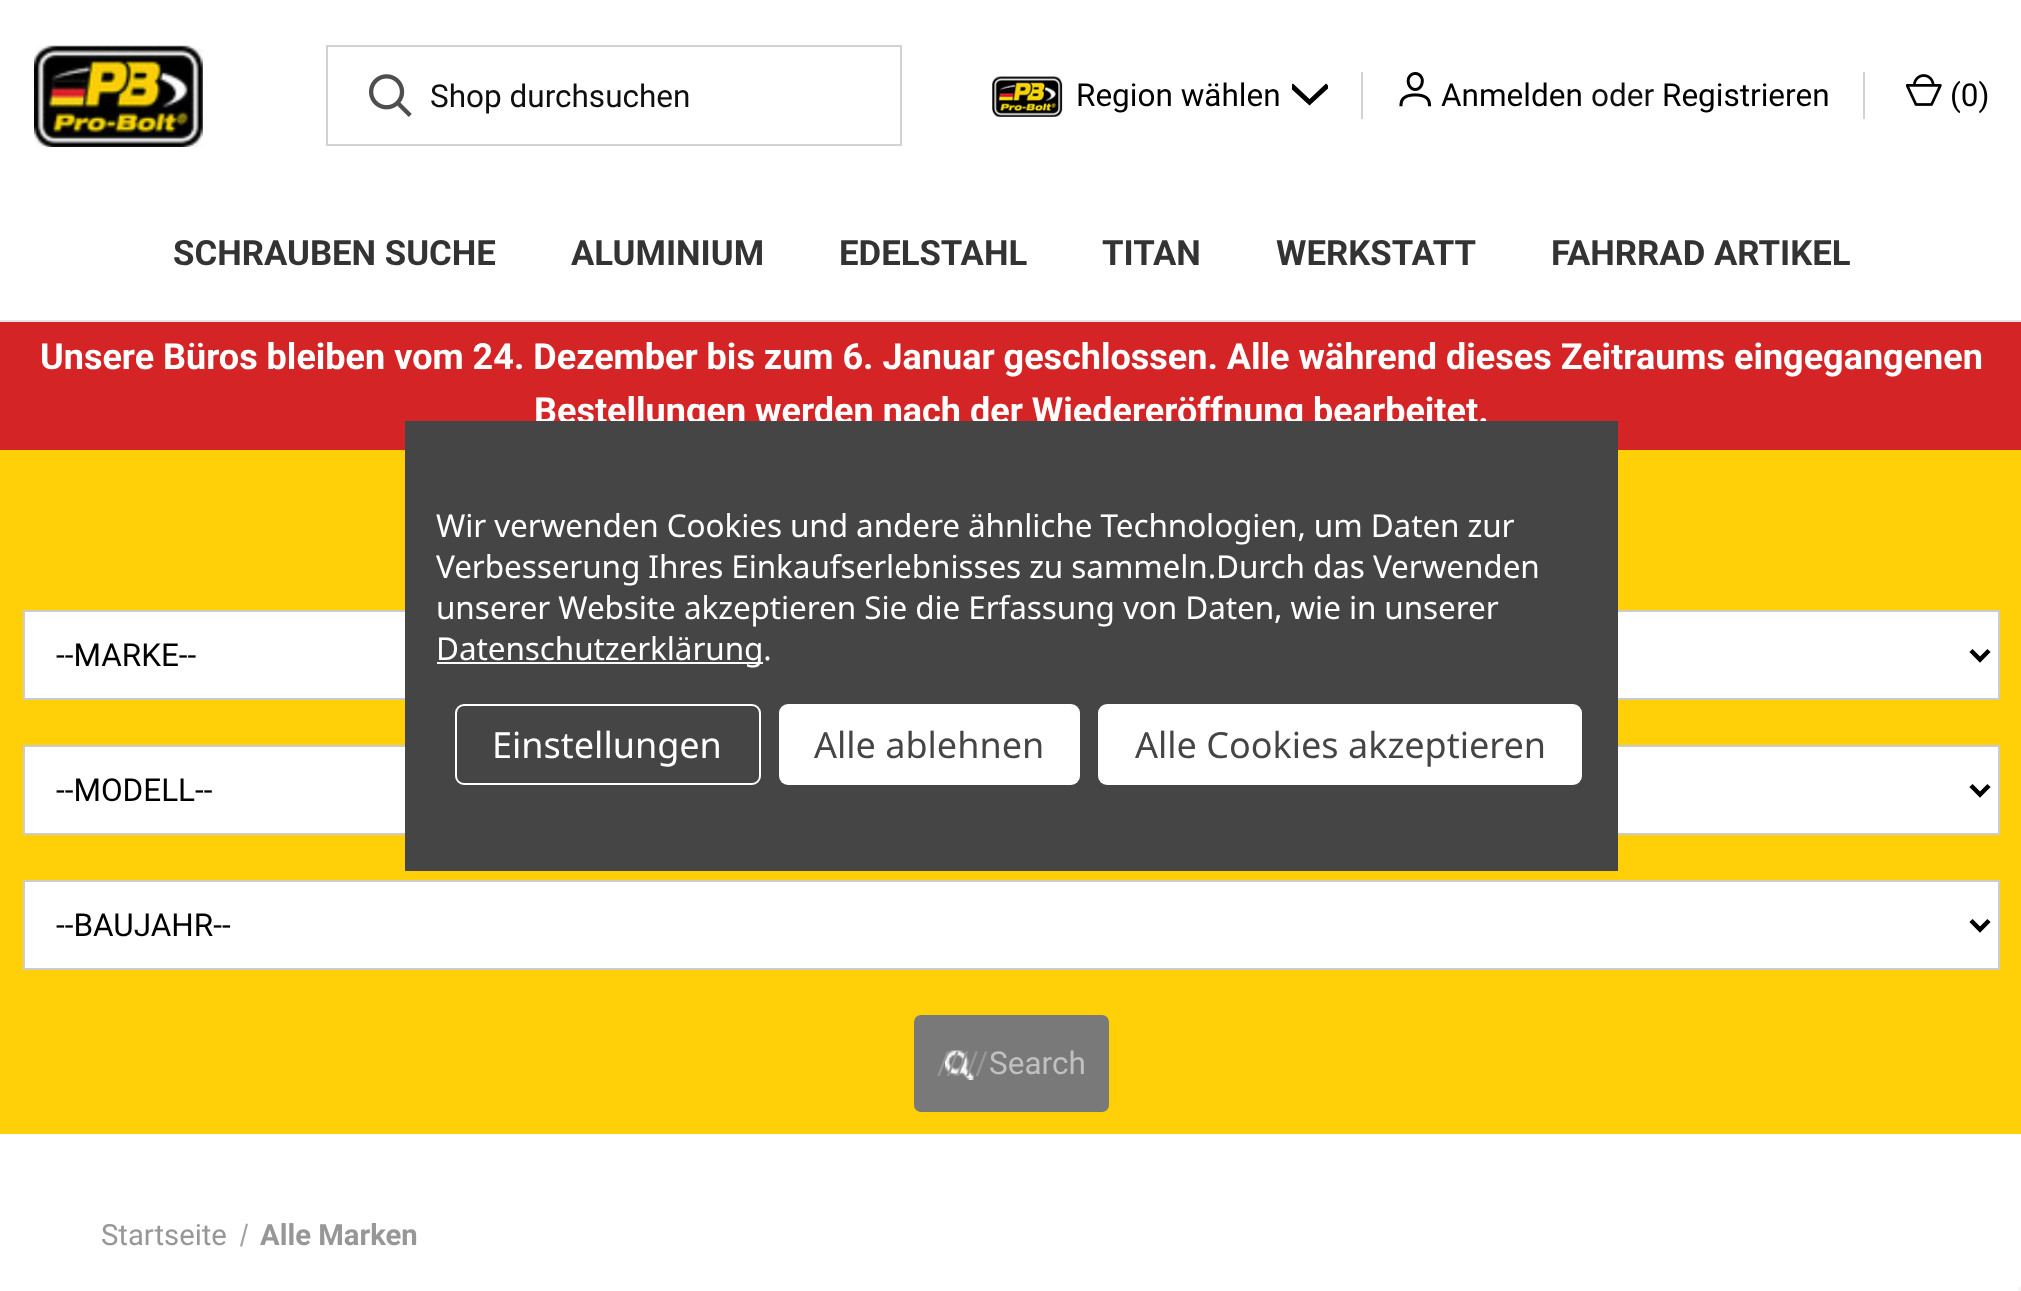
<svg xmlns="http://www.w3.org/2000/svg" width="2021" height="1291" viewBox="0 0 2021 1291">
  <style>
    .t1 { font: 31.5px Roboto; fill: #0f0f0f; }
    .t2 { font: 31.5px Roboto; fill: #000; }
    .t3 { font: bold 34.75px Roboto; fill: #333; }
    .t4 { font: bold 36px Roboto; fill: #fff; }
    .t5 { font: 31.5px Noto Sans; letter-spacing: -0.1px; fill: #fff; }
    .t6 { font: 36px Noto Sans; fill: #fff; }
    .t7 { font: 36px Noto Sans; fill: #454545; }
    .t8 { font: 31.5px Roboto; fill: #c0c0c0; }
    .t9 { font: 31.5px Roboto; fill: #979797; }
    .t10 { font: 29.25px Roboto; fill: #979797; }
    .t11 { font: bold 29.25px Roboto; fill: #979797; }
  </style>
  <defs>
    <clipPath id="clip1"><rect x="1292" y="77" width="36" height="36"/></clipPath>
  </defs>
  <rect width="100%" height="100%" fill="#fff"/>
  <image x="34" y="45" width="169" height="102" href="images/1.png"/>
  <rect x="327" y="46" width="574" height="99" fill="none" stroke="#d2d2d2" stroke-width="2"/>
  <image x="369" y="74" width="43" height="43" href="images/2.png"/>
  <text x="430" y="107" class="t1">Shop durchsuchen</text>
  <image x="992" y="76" width="71" height="41" href="images/3.png"/>
  <text x="1076" y="106" class="t2">Region wählen</text>
  <g clip-path="url(#clip1)">
    <path d="M1309.5 101L1326 85.5L1327.5 87L1309.5 103.5L1291.5 87L1293 85.5Z" fill="none" stroke="#000" stroke-width="3" stroke-linecap="square"/>
  </g>
  <rect x="1361" y="72" width="2" height="47" fill="#d2d2d2"/>
  <image x="1399" y="72" width="33" height="35" href="images/4.png"/>
  <text x="1441" y="106" class="t2">Anmelden</text>
  <text x="1591" y="106" class="t1">oder</text>
  <text x="1662" y="106" class="t2">Registrieren</text>
  <rect x="1863" y="72" width="2" height="47" fill="#d2d2d2"/>
  <image x="1906" y="74" width="36" height="32" href="images/5.png"/>
  <text x="1950" y="106" class="t2">(0)</text>
  <rect x="0" y="320" width="2021" height="2" fill="#e5e5e5"/>
  <text x="173" y="265" class="t3">SCHRAUBEN SUCHE</text>
  <text x="571" y="265" class="t3">ALUMINIUM</text>
  <text x="839" y="265" class="t3">EDELSTAHL</text>
  <text x="1102" y="265" class="t3">TITAN</text>
  <text x="1276" y="265" class="t3">WERKSTATT</text>
  <text x="1551" y="265" class="t3">FAHRRAD ARTIKEL</text>
  <rect x="0" y="322" width="2021" height="128" fill="#d42426"/>
  <text x="40" y="369" class="t4">Unsere Büros bleiben vom 24. Dezember bis zum 6. Januar geschlossen. Alle während dieses Zeitraums eingegangenen</text>
  <text x="534" y="423" class="t4">Bestellungen werden nach der Wiedereröffnung bearbeitet.</text>
  <rect x="0" y="450" width="2021" height="684" fill="#ffd007"/>
  <rect x="24" y="611" width="1975" height="88" fill="#fff" stroke="#ccc" stroke-width="2"/>
  <rect x="24" y="746" width="1975" height="88" fill="#fff" stroke="#ccc" stroke-width="2"/>
  <rect x="405" y="421" width="1213" height="450" fill="#454545"/>
  <text x="436" y="537" class="t5">Wir verwenden Cookies und andere ähnliche Technologien, um Daten zur</text>
  <text x="436" y="578" class="t5">Verbesserung Ihres Einkaufserlebnisses zu sammeln.Durch das Verwenden</text>
  <text x="436" y="619" class="t5">unserer Website akzeptieren Sie die Erfassung von Daten, wie in unserer</text>
  <rect x="437" y="662" width="326" height="2" fill="#fff"/>
  <text x="436" y="660" class="t5">Datenschutzerklärung.</text>
  <rect x="456" y="705" width="304" height="79" rx="8" fill="none" stroke="#fff" stroke-width="2"/>
  <text x="492" y="758" class="t6">Einstellungen</text>
  <rect x="779" y="704" width="301" height="81" rx="9" fill="#fff"/>
  <text x="814" y="758" class="t7">Alle ablehnen</text>
  <rect x="1098" y="704" width="484" height="81" rx="9" fill="#fff"/>
  <text x="1135" y="758" class="t7">Alle Cookies akzeptieren</text>
  <path d="M1971 650.5L1980 659.5L1989 650.5" fill="none" stroke="#000" stroke-width="4.5"/>
  <text x="56" y="666" class="t2">--MARKE--</text>
  <path d="M1971 785.5L1980 794.5L1989 785.5" fill="none" stroke="#000" stroke-width="4.5"/>
  <text x="56" y="801" class="t2">--MODELL--</text>
  <rect x="24" y="881" width="1975" height="88" fill="#fff" stroke="#ccc" stroke-width="2"/>
  <path d="M1971 920.5L1980 929.5L1989 920.5" fill="none" stroke="#000" stroke-width="4.5"/>
  <text x="56" y="936" class="t2">--BAUJAHR--</text>
  <rect x="915" y="1016" width="193" height="95" rx="6" fill="#797979" stroke="#797979" stroke-width="2"/>
  <image x="945" y="1050" width="29" height="30" href="images/6.png"/>
  <text x="989" y="1074" class="t8">Search</text>
  <text x="937" y="1074" class="t9">/////</text>
  <text x="101" y="1245" class="t10">Startseite</text>
  <path d="M246 1223.5L248 1224L242 1247L240 1246Z" fill="#a3a3a3"/>
  <text x="260" y="1245" class="t11">Alle Marken</text>
  <rect x="2018" y="1287" width="3" height="4" fill="#f5f5f5"/>
</svg>
